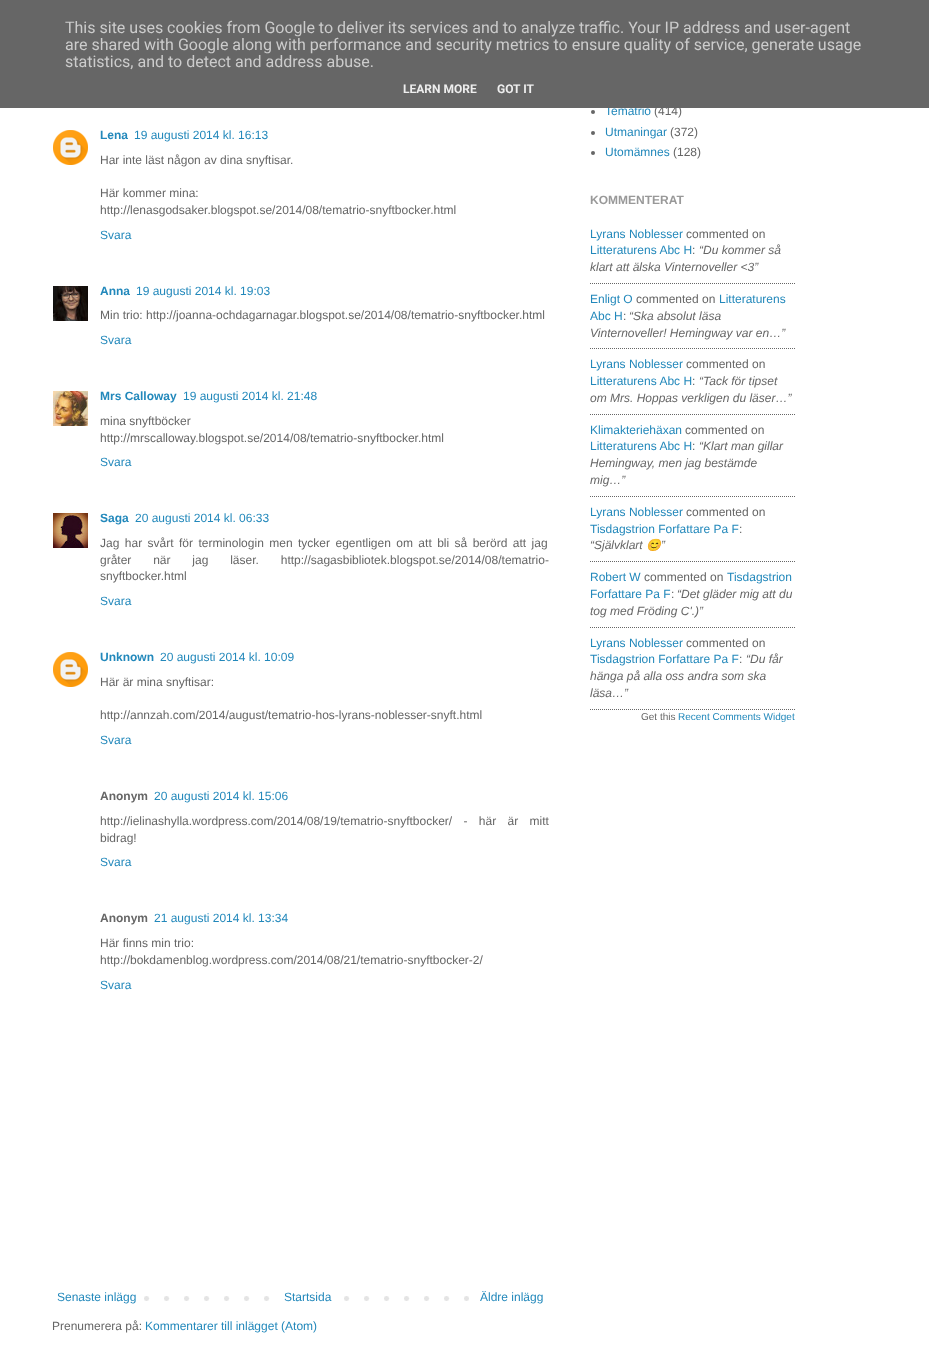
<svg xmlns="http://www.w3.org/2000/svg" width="929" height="1371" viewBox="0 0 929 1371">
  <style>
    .t1 { font: 12px Liberation Sans; fill: #28b; }
    .t2 { font: 16px Roboto; fill: #ccc; }
    .t3 { font: bold 12px Roboto; fill: #eee; }
    .t4 { font: bold 12px Liberation Sans; fill: #28b; }
    .t5 { font: 12px Liberation Sans; fill: #666; }
    .t6 { font: bold 12px Liberation Sans; fill: #666; }
    .t7 { font: bold 12px Liberation Sans; fill: #999; }
    .t8 { font: italic 12px Liberation Sans; fill: #666; }
    .t9 { font: italic 12px Noto Color Emoji; fill: #666; }
    .t10 { font: 10px Liberation Sans; fill: #666; }
    .t11 { font: 10px Liberation Sans; fill: #28b; }
  </style>
  <rect width="100%" height="100%" fill="#fff"/>
  <text x="605" y="115" class="t1">Tematrio</text>
  <rect x="0" y="0" width="929" height="108" fill="#666"/>
  <text x="65" y="33" class="t2">This site uses cookies from Google to deliver its services and to analyze traffic. Your IP address and user-agent</text>
  <text x="65" y="50" class="t2">are shared with Google along with performance and security metrics to ensure quality of service, generate usage</text>
  <text x="65" y="67" class="t2">statistics, and to detect and address abuse.</text>
  <text x="403" y="93" class="t3">LEARN MORE</text>
  <text x="497" y="93" class="t3">GOT IT</text>
  <image x="53" y="130" width="35" height="35" href="images/1.png"/>
  <text x="100" y="139" class="t4">Lena</text>
  <text x="134" y="139" class="t1">19 augusti 2014 kl. 16:13</text>
  <text x="100" y="164" class="t5">Har inte läst någon av dina snyftisar.</text>
  <text x="100" y="197" class="t5">Här kommer mina:</text>
  <text x="100" y="214" class="t5">http://lenasgodsaker.blogspot.se/2014/08/tematrio-snyftbocker.html</text>
  <text x="100" y="239" class="t1">Svara</text>
  <image x="53" y="286" width="35" height="35" href="images/2.png"/>
  <text x="100" y="295" class="t4">Anna</text>
  <text x="136" y="295" class="t1">19 augusti 2014 kl. 19:03</text>
  <text x="100" y="319" class="t5">Min trio: http://joanna-ochdagarnagar.blogspot.se/2014/08/tematrio-snyftbocker.html</text>
  <text x="100" y="344" class="t1">Svara</text>
  <image x="53" y="391" width="35" height="35" href="images/3.png"/>
  <text x="100" y="400" class="t4">Mrs Calloway</text>
  <text x="183" y="400" class="t1">19 augusti 2014 kl. 21:48</text>
  <text x="100" y="425" class="t5">mina snyftböcker</text>
  <text x="100" y="442" class="t5">http://mrscalloway.blogspot.se/2014/08/tematrio-snyftbocker.html</text>
  <text x="100" y="466" class="t1">Svara</text>
  <image x="53" y="513" width="35" height="35" href="images/4.png"/>
  <text x="100" y="522" class="t4">Saga</text>
  <text x="135" y="522" class="t1">20 augusti 2014 kl. 06:33</text>
  <text x="100" y="547" word-spacing="2.1" class="t5">Jag har svårt för terminologin men tycker egentligen om att bli så berörd att jag</text>
  <text x="100" y="564" word-spacing="18.5" class="t5">gråter när jag läser. http://sagasbibliotek.blogspot.se/2014/08/tematrio-</text>
  <text x="100" y="580" class="t5">snyftbocker.html</text>
  <text x="100" y="605" class="t1">Svara</text>
  <image x="53" y="652" width="35" height="35" href="images/1.png"/>
  <text x="100" y="661" class="t4">Unknown</text>
  <text x="160" y="661" class="t1">20 augusti 2014 kl. 10:09</text>
  <text x="100" y="686" class="t5">Här är mina snyftisar:</text>
  <text x="100" y="719" class="t5">http://annzah.com/2014/august/tematrio-hos-lyrans-noblesser-snyft.html</text>
  <text x="100" y="744" class="t1">Svara</text>
  <text x="100" y="800" class="t6">Anonym</text>
  <text x="154" y="800" class="t1">20 augusti 2014 kl. 15:06</text>
  <text x="100" y="825" word-spacing="8" class="t5">http://ielinashylla.wordpress.com/2014/08/19/tematrio-snyftbocker/ - här är mitt</text>
  <text x="100" y="842" class="t5">bidrag!</text>
  <text x="100" y="866" class="t1">Svara</text>
  <text x="100" y="922" class="t6">Anonym</text>
  <text x="154" y="922" class="t1">21 augusti 2014 kl. 13:34</text>
  <text x="100" y="947" class="t5">Här finns min trio:</text>
  <text x="100" y="964" class="t5">http://bokdamenblog.wordpress.com/2014/08/21/tematrio-snyftbocker-2/</text>
  <text x="100" y="989" class="t1">Svara</text>
  <image x="144" y="1296" width="325" height="5" href="images/5.png"/>
  <text x="57" y="1301" class="t1">Senaste inlägg</text>
  <rect x="284" y="1296" width="46" height="5" fill="#fff"/>
  <text x="284" y="1301" class="t1">Startsida</text>
  <text x="480" y="1301" class="t1">Äldre inlägg</text>
  <text x="52" y="1330" class="t5">Prenumerera på:</text>
  <text x="145" y="1330" class="t1">Kommentarer till inlägget (Atom)</text>
  <circle cx="593" cy="112" r="2" fill="#666"/>
  <text x="654" y="115" class="t5">(414)</text>
  <circle cx="593" cy="133" r="2" fill="#666"/>
  <text x="605" y="136" class="t1">Utmaningar</text>
  <text x="670" y="136" class="t5">(372)</text>
  <circle cx="593" cy="153" r="2" fill="#666"/>
  <text x="605" y="156" class="t1">Utomämnes</text>
  <text x="673" y="156" class="t5">(128)</text>
  <text x="590" y="204" class="t7">KOMMENTERAT</text>
  <path d="M590 283.5H795" fill="none" stroke="#666" stroke-dasharray="1 1"/>
  <text x="590" y="238" class="t1">Lyrans Noblesser</text>
  <text x="686" y="238" class="t5">commented on</text>
  <text x="590" y="254" class="t1">Litteraturens Abc H</text>
  <text x="692" y="254" class="t5">:</text>
  <text x="699" y="254" class="t8">“Du kommer så</text>
  <text x="590" y="271" class="t8">klart att älska Vinternoveller &lt;3”</text>
  <path d="M590 348.5H795" fill="none" stroke="#666" stroke-dasharray="1 1"/>
  <text x="590" y="303" class="t1">Enligt O</text>
  <text x="636" y="303" class="t5">commented on</text>
  <text x="719" y="303" class="t1">Litteraturens</text>
  <text x="590" y="320" class="t1">Abc H</text>
  <text x="623" y="320" class="t5">:</text>
  <text x="629" y="320" class="t8">“Ska absolut läsa</text>
  <text x="590" y="337" class="t8">Vinternoveller! Hemingway var en…”</text>
  <path d="M590 414.5H795" fill="none" stroke="#666" stroke-dasharray="1 1"/>
  <text x="590" y="368" class="t1">Lyrans Noblesser</text>
  <text x="686" y="368" class="t5">commented on</text>
  <text x="590" y="385" class="t1">Litteraturens Abc H</text>
  <text x="692" y="385" class="t5">:</text>
  <text x="699" y="385" class="t8">“Tack för tipset</text>
  <text x="590" y="402" class="t8">om Mrs. Hoppas verkligen du läser…”</text>
  <path d="M590 496.5H795" fill="none" stroke="#666" stroke-dasharray="1 1"/>
  <text x="590" y="434" class="t1">Klimakteriehäxan</text>
  <text x="685" y="434" class="t5">commented on</text>
  <text x="590" y="450" class="t1">Litteraturens Abc H</text>
  <text x="692" y="450" class="t5">:</text>
  <text x="699" y="450" class="t8">“Klart man gillar</text>
  <text x="590" y="467" class="t8">Hemingway, men jag bestämde</text>
  <text x="590" y="484" class="t8">mig…”</text>
  <path d="M590 561.5H795" fill="none" stroke="#666" stroke-dasharray="1 1"/>
  <text x="590" y="516" class="t1">Lyrans Noblesser</text>
  <text x="686" y="516" class="t5">commented on</text>
  <text x="590" y="533" class="t1">Tisdagstrion Forfattare Pa F</text>
  <text x="739" y="533" class="t5">:</text>
  <text x="590" y="549" class="t8">“Självklart</text>
  <text x="646" y="549" class="t9">😊</text>
  <text x="661" y="549" class="t8">”</text>
  <path d="M590 627.5H795" fill="none" stroke="#666" stroke-dasharray="1 1"/>
  <text x="590" y="581" class="t1">Robert W</text>
  <text x="644" y="581" class="t5">commented on</text>
  <text x="727" y="581" class="t1">Tisdagstrion</text>
  <text x="590" y="598" class="t1">Forfattare Pa F</text>
  <text x="671" y="598" class="t5">:</text>
  <text x="677" y="598" class="t8">“Det gläder mig att du</text>
  <text x="590" y="615" class="t8">tog med Fröding C'.)”</text>
  <path d="M590 709.5H795" fill="none" stroke="#666" stroke-dasharray="1 1"/>
  <text x="590" y="647" class="t1">Lyrans Noblesser</text>
  <text x="686" y="647" class="t5">commented on</text>
  <text x="590" y="663" class="t1">Tisdagstrion Forfattare Pa F</text>
  <text x="739" y="663" class="t5">:</text>
  <text x="746" y="663" class="t8">“Du får</text>
  <text x="590" y="680" class="t8">hänga på alla oss andra som ska</text>
  <text x="590" y="697" class="t8">läsa…”</text>
  <text x="641" y="720" class="t10">Get this</text>
  <text x="678" y="720" class="t11">Recent Comments Widget</text>
</svg>
